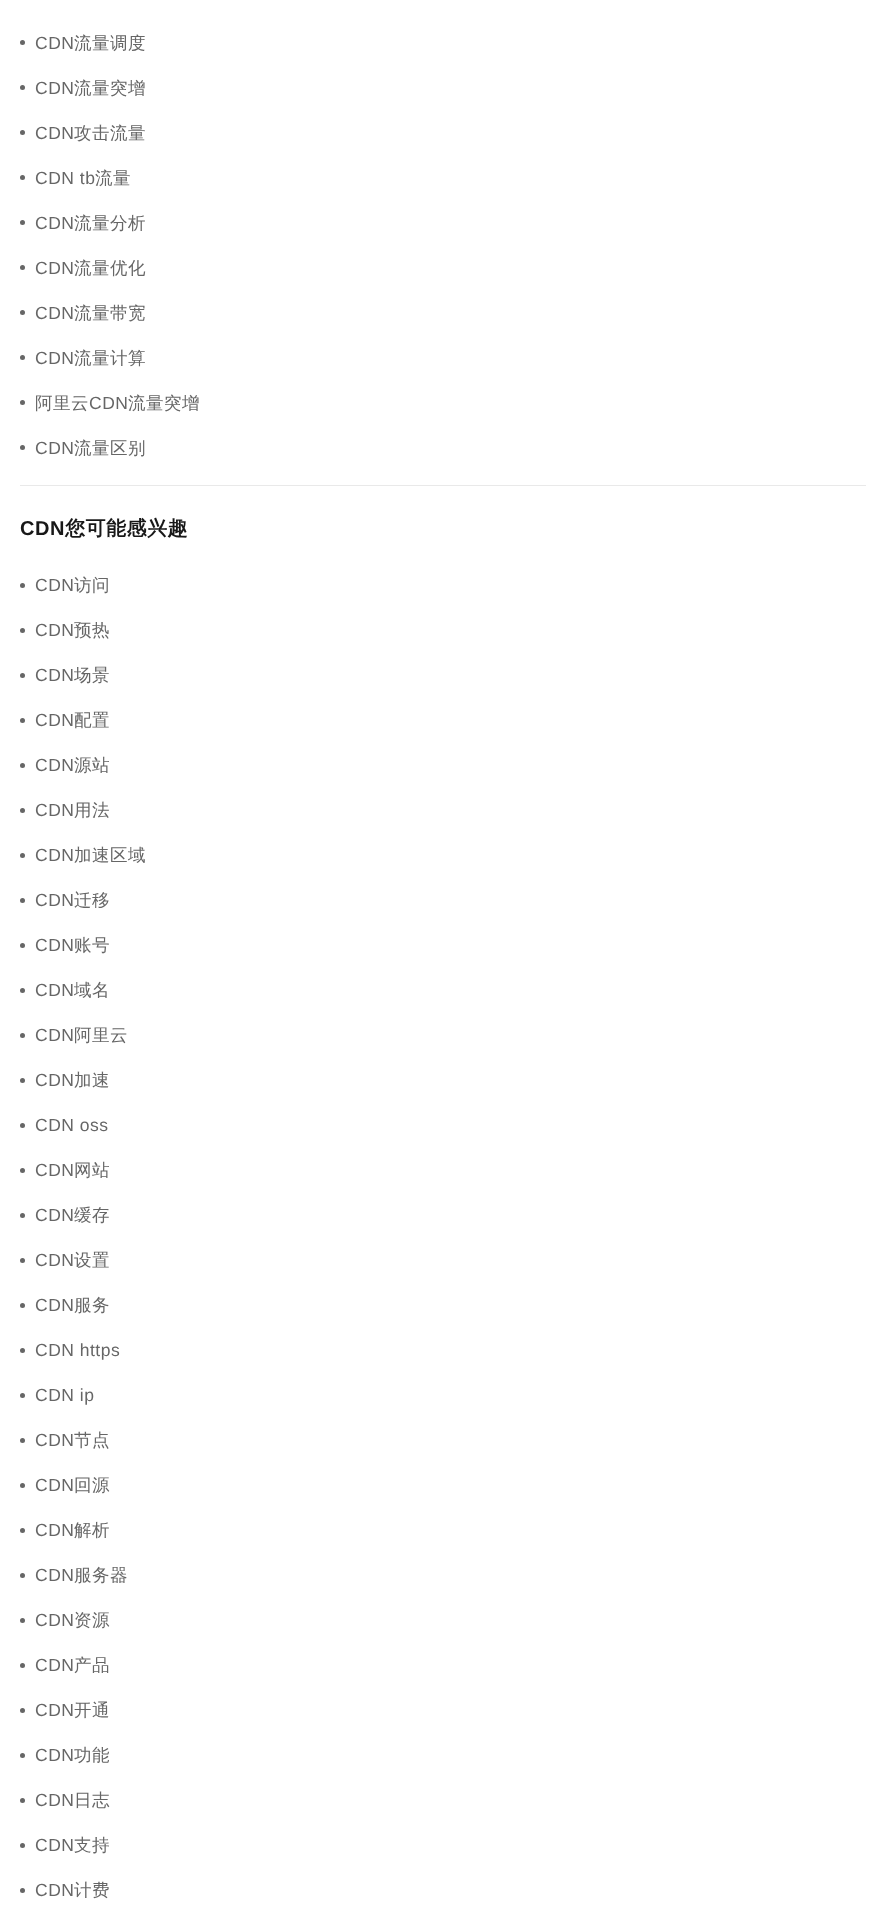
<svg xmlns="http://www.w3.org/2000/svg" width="886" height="1923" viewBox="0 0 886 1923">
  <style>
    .t1 { font: 17.5px Liberation Sans; letter-spacing: 0.5px; fill: #666; }
    .t2 { font: 500 17.5px WenQuanYi Zen Hei; letter-spacing: 0.5px; fill: #666; }
    .t3 { font: bold 20px Liberation Sans; letter-spacing: 0.5px; fill: #181818; }
    .t4 { font: bold 20px WenQuanYi Zen Hei; letter-spacing: 0.5px; fill: #181818; }
  </style>
  <rect width="100%" height="100%" fill="#fff"/>
  <circle cx="22.5" cy="42.5" r="2.5" fill="#666"/>
  <text x="35" y="49" class="t1">CDN</text>
  <text x="74" y="49" class="t2">流量调度</text>
  <circle cx="22.5" cy="87.5" r="2.5" fill="#666"/>
  <text x="35" y="94" class="t1">CDN</text>
  <text x="74" y="94" class="t2">流量突增</text>
  <circle cx="22.5" cy="132.5" r="2.5" fill="#666"/>
  <text x="35" y="139" class="t1">CDN</text>
  <text x="74" y="139" class="t2">攻击流量</text>
  <circle cx="22.5" cy="177.5" r="2.5" fill="#666"/>
  <text x="35" y="184" class="t1">CDN tb</text>
  <text x="95" y="184" class="t2">流量</text>
  <circle cx="22.5" cy="222.5" r="2.5" fill="#666"/>
  <text x="35" y="229" class="t1">CDN</text>
  <text x="74" y="229" class="t2">流量分析</text>
  <circle cx="22.5" cy="267.5" r="2.5" fill="#666"/>
  <text x="35" y="274" class="t1">CDN</text>
  <text x="74" y="274" class="t2">流量优化</text>
  <circle cx="22.5" cy="312.5" r="2.5" fill="#666"/>
  <text x="35" y="319" class="t1">CDN</text>
  <text x="74" y="319" class="t2">流量带宽</text>
  <circle cx="22.5" cy="357.5" r="2.5" fill="#666"/>
  <text x="35" y="364" class="t1">CDN</text>
  <text x="74" y="364" class="t2">流量计算</text>
  <circle cx="22.5" cy="402.5" r="2.5" fill="#666"/>
  <text x="35" y="409" class="t2">阿里云</text>
  <text x="89" y="409" class="t1">CDN</text>
  <text x="128" y="409" class="t2">流量突增</text>
  <circle cx="22.5" cy="447.5" r="2.5" fill="#666"/>
  <text x="35" y="454" class="t1">CDN</text>
  <text x="74" y="454" class="t2">流量区别</text>
  <rect x="20" y="485" width="846" height="1" fill="#e9e9e9"/>
  <text x="20" y="535" class="t3">CDN</text>
  <text x="65" y="535" class="t4">您可能感兴趣</text>
  <circle cx="22.5" cy="585.5" r="2.5" fill="#666"/>
  <text x="35" y="591" class="t1">CDN</text>
  <text x="74" y="591" class="t2">访问</text>
  <circle cx="22.5" cy="630.5" r="2.5" fill="#666"/>
  <text x="35" y="636" class="t1">CDN</text>
  <text x="74" y="636" class="t2">预热</text>
  <circle cx="22.5" cy="675.5" r="2.5" fill="#666"/>
  <text x="35" y="681" class="t1">CDN</text>
  <text x="74" y="681" class="t2">场景</text>
  <circle cx="22.5" cy="720.5" r="2.5" fill="#666"/>
  <text x="35" y="726" class="t1">CDN</text>
  <text x="74" y="726" class="t2">配置</text>
  <circle cx="22.5" cy="765.5" r="2.5" fill="#666"/>
  <text x="35" y="771" class="t1">CDN</text>
  <text x="74" y="771" class="t2">源站</text>
  <circle cx="22.5" cy="810.5" r="2.5" fill="#666"/>
  <text x="35" y="816" class="t1">CDN</text>
  <text x="74" y="816" class="t2">用法</text>
  <circle cx="22.5" cy="855.5" r="2.5" fill="#666"/>
  <text x="35" y="861" class="t1">CDN</text>
  <text x="74" y="861" class="t2">加速区域</text>
  <circle cx="22.5" cy="900.5" r="2.5" fill="#666"/>
  <text x="35" y="906" class="t1">CDN</text>
  <text x="74" y="906" class="t2">迁移</text>
  <circle cx="22.5" cy="945.5" r="2.5" fill="#666"/>
  <text x="35" y="951" class="t1">CDN</text>
  <text x="74" y="951" class="t2">账号</text>
  <circle cx="22.5" cy="990.5" r="2.5" fill="#666"/>
  <text x="35" y="996" class="t1">CDN</text>
  <text x="74" y="996" class="t2">域名</text>
  <circle cx="22.5" cy="1035.5" r="2.5" fill="#666"/>
  <text x="35" y="1041" class="t1">CDN</text>
  <text x="74" y="1041" class="t2">阿里云</text>
  <circle cx="22.5" cy="1080.5" r="2.5" fill="#666"/>
  <text x="35" y="1086" class="t1">CDN</text>
  <text x="74" y="1086" class="t2">加速</text>
  <circle cx="22.5" cy="1125.5" r="2.5" fill="#666"/>
  <text x="35" y="1131" class="t1">CDN oss</text>
  <circle cx="22.5" cy="1170.5" r="2.5" fill="#666"/>
  <text x="35" y="1176" class="t1">CDN</text>
  <text x="74" y="1176" class="t2">网站</text>
  <circle cx="22.5" cy="1215.5" r="2.5" fill="#666"/>
  <text x="35" y="1221" class="t1">CDN</text>
  <text x="74" y="1221" class="t2">缓存</text>
  <circle cx="22.5" cy="1260.5" r="2.5" fill="#666"/>
  <text x="35" y="1266" class="t1">CDN</text>
  <text x="74" y="1266" class="t2">设置</text>
  <circle cx="22.5" cy="1305.5" r="2.5" fill="#666"/>
  <text x="35" y="1311" class="t1">CDN</text>
  <text x="74" y="1311" class="t2">服务</text>
  <circle cx="22.5" cy="1350.5" r="2.5" fill="#666"/>
  <text x="35" y="1356" class="t1">CDN https</text>
  <circle cx="22.5" cy="1395.5" r="2.5" fill="#666"/>
  <text x="35" y="1401" class="t1">CDN ip</text>
  <circle cx="22.5" cy="1440.5" r="2.5" fill="#666"/>
  <text x="35" y="1446" class="t1">CDN</text>
  <text x="74" y="1446" class="t2">节点</text>
  <circle cx="22.5" cy="1485.5" r="2.5" fill="#666"/>
  <text x="35" y="1491" class="t1">CDN</text>
  <text x="74" y="1491" class="t2">回源</text>
  <circle cx="22.5" cy="1530.5" r="2.5" fill="#666"/>
  <text x="35" y="1536" class="t1">CDN</text>
  <text x="74" y="1536" class="t2">解析</text>
  <circle cx="22.5" cy="1575.5" r="2.5" fill="#666"/>
  <text x="35" y="1581" class="t1">CDN</text>
  <text x="74" y="1581" class="t2">服务器</text>
  <circle cx="22.5" cy="1620.5" r="2.5" fill="#666"/>
  <text x="35" y="1626" class="t1">CDN</text>
  <text x="74" y="1626" class="t2">资源</text>
  <circle cx="22.5" cy="1665.5" r="2.5" fill="#666"/>
  <text x="35" y="1671" class="t1">CDN</text>
  <text x="74" y="1671" class="t2">产品</text>
  <circle cx="22.5" cy="1710.5" r="2.5" fill="#666"/>
  <text x="35" y="1716" class="t1">CDN</text>
  <text x="74" y="1716" class="t2">开通</text>
  <circle cx="22.5" cy="1755.5" r="2.5" fill="#666"/>
  <text x="35" y="1761" class="t1">CDN</text>
  <text x="74" y="1761" class="t2">功能</text>
  <circle cx="22.5" cy="1800.5" r="2.5" fill="#666"/>
  <text x="35" y="1806" class="t1">CDN</text>
  <text x="74" y="1806" class="t2">日志</text>
  <circle cx="22.5" cy="1845.5" r="2.5" fill="#666"/>
  <text x="35" y="1851" class="t1">CDN</text>
  <text x="74" y="1851" class="t2">支持</text>
  <circle cx="22.5" cy="1890.5" r="2.5" fill="#666"/>
  <text x="35" y="1896" class="t1">CDN</text>
  <text x="74" y="1896" class="t2">计费</text>
</svg>
